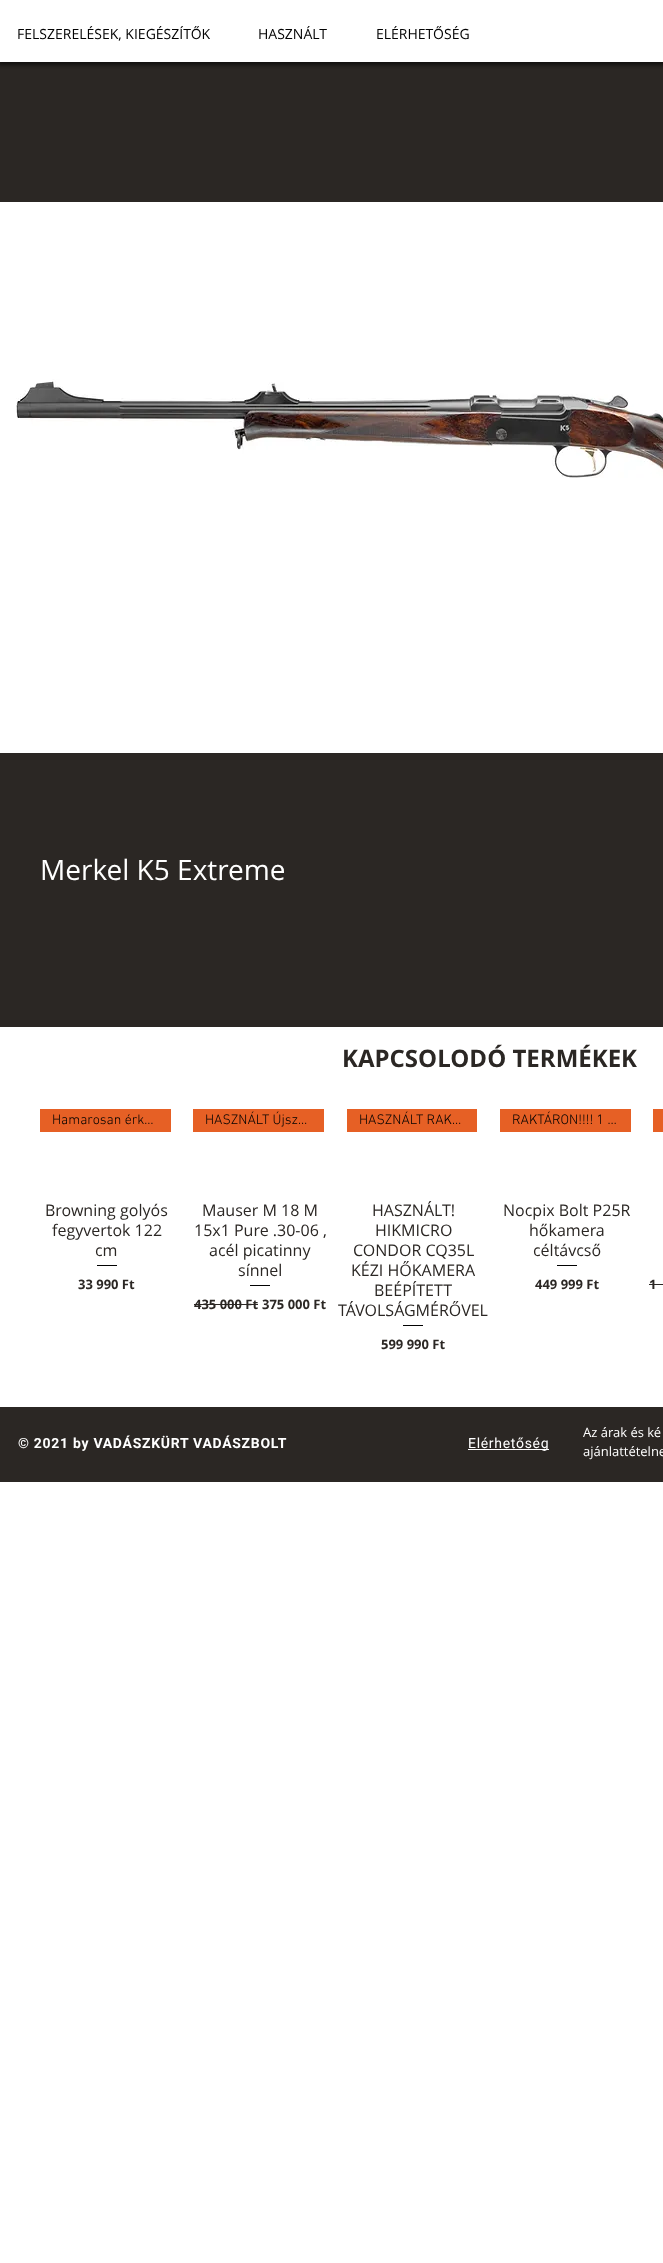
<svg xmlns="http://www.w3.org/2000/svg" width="663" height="2263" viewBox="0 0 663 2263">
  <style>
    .t1 { font: 14px Open Sans; fill: #020202; }
    .t2 { font: 28px Open Sans; fill: #fff; }
    .t3 { font: bold 24px Open Sans; fill: #2b2724; }
    .t4 { font: 300 14px 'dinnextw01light'; fill: #020202; }
    .t5 { font: 16px Open Sans; fill: #2b2724; }
    .t6 { font: bold 13px Open Sans; fill: #2b2724; }
    .t7 { font: bold 14px Roboto; letter-spacing: 0.7px; fill: #fff; }
    .t8 { font: 14px Roboto; letter-spacing: 0.7px; fill: #fff; }
    .t9 { font: 13px Open Sans; fill: #fff; }
  </style>
  <defs>
    <clipPath id="clip1"><rect x="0" y="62" width="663" height="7"/></clipPath>
  </defs>
  <rect width="100%" height="100%" fill="#fff"/>
  <rect x="0" y="62" width="663" height="965" fill="#2b2724"/>
  <g clip-path="url(#clip1)">
    <rect x="-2" y="-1" width="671" height="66" fill="#00000099" filter="blur(2px)"/>
  </g>
  <text x="17" y="39" class="t1">FELSZERELÉSEK, KIEGÉSZÍTŐK</text>
  <text x="258" y="39" class="t1">HASZNÁLT</text>
  <text x="376" y="39" class="t1">ELÉRHETŐSÉG</text>
  <rect x="0" y="202" width="663" height="551" fill="#fff"/>
  <image x="16" y="379" width="647" height="99" href="images/1.png"/>
  <text x="40" y="880" class="t2">Merkel K5 Extreme</text>
  <text x="342" y="1067" class="t3">KAPCSOLODÓ TERMÉKEK</text>
  <rect x="40" y="1109" width="131" height="23" fill="#e66025"/>
  <text x="52" y="1124" class="t4">Hamarosan érk…</text>
  <text x="45" y="1216" class="t5">Browning golyós</text>
  <text x="52" y="1236" class="t5">fegyvertok 122</text>
  <text x="95" y="1256" class="t5">cm</text>
  <rect x="97" y="1265" width="20" height="1" fill="#020202"/>
  <text x="78" y="1289" class="t6">33 990 Ft</text>
  <rect x="193" y="1109" width="131" height="23" fill="#e66025"/>
  <text x="205" y="1124" class="t4">HASZNÁLT Újsz…</text>
  <text x="202" y="1216" class="t5">Mauser M 18 M</text>
  <text x="194" y="1236" class="t5">15x1 Pure .30-06 ,</text>
  <text x="209" y="1256" class="t5">acél picatinny</text>
  <text x="238" y="1276" class="t5">sínnel</text>
  <rect x="250" y="1285" width="20" height="1" fill="#020202"/>
  <text x="194" y="1309" class="t6">435 000 Ft</text>
  <rect x="194" y="1304" width="64" height="1" fill="#2b2724"/>
  <text x="262" y="1309" class="t6">375 000 Ft</text>
  <rect x="347" y="1109" width="130" height="23" fill="#e66025"/>
  <text x="359" y="1124" class="t4">HASZNÁLT RAK…</text>
  <text x="372" y="1216" class="t5">HASZNÁLT!</text>
  <text x="375" y="1236" class="t5">HIKMICRO</text>
  <text x="353" y="1256" class="t5">CONDOR CQ35L</text>
  <text x="351" y="1276" class="t5">KÉZI HŐKAMERA</text>
  <text x="374" y="1296" class="t5">BEÉPÍTETT</text>
  <text x="338" y="1316" class="t5">TÁVOLSÁGMÉRŐVEL</text>
  <rect x="403" y="1325" width="20" height="1" fill="#020202"/>
  <text x="381" y="1349" class="t6">599 990 Ft</text>
  <rect x="500" y="1109" width="131" height="23" fill="#e66025"/>
  <text x="512" y="1124" class="t4">RAKTÁRON!!!! 1 …</text>
  <text x="503" y="1216" class="t5">Nocpix Bolt P25R</text>
  <text x="529" y="1236" class="t5">hőkamera</text>
  <text x="533" y="1256" class="t5">céltávcső</text>
  <rect x="557" y="1265" width="20" height="1" fill="#020202"/>
  <text x="535" y="1289" class="t6">449 999 Ft</text>
  <rect x="653" y="1109" width="10" height="23" fill="#e66025"/>
  <text x="649" y="1289" class="t6">1</text>
  <rect x="649" y="1284" width="14" height="1" fill="#2b2724"/>
  <rect x="0" y="1407" width="663" height="75" fill="#2b2724"/>
  <text x="18" y="1448" class="t7">© 2021 by VADÁSZKÜRT VADÁSZBOLT</text>
  <rect x="468" y="1449" width="81" height="1" fill="#fff"/>
  <text x="468" y="1448" class="t8">Elérhetőség</text>
  <text x="583" y="1437" class="t9">Az árak és ké</text>
  <text x="583" y="1456" class="t9">ajánlattételne</text>
</svg>
